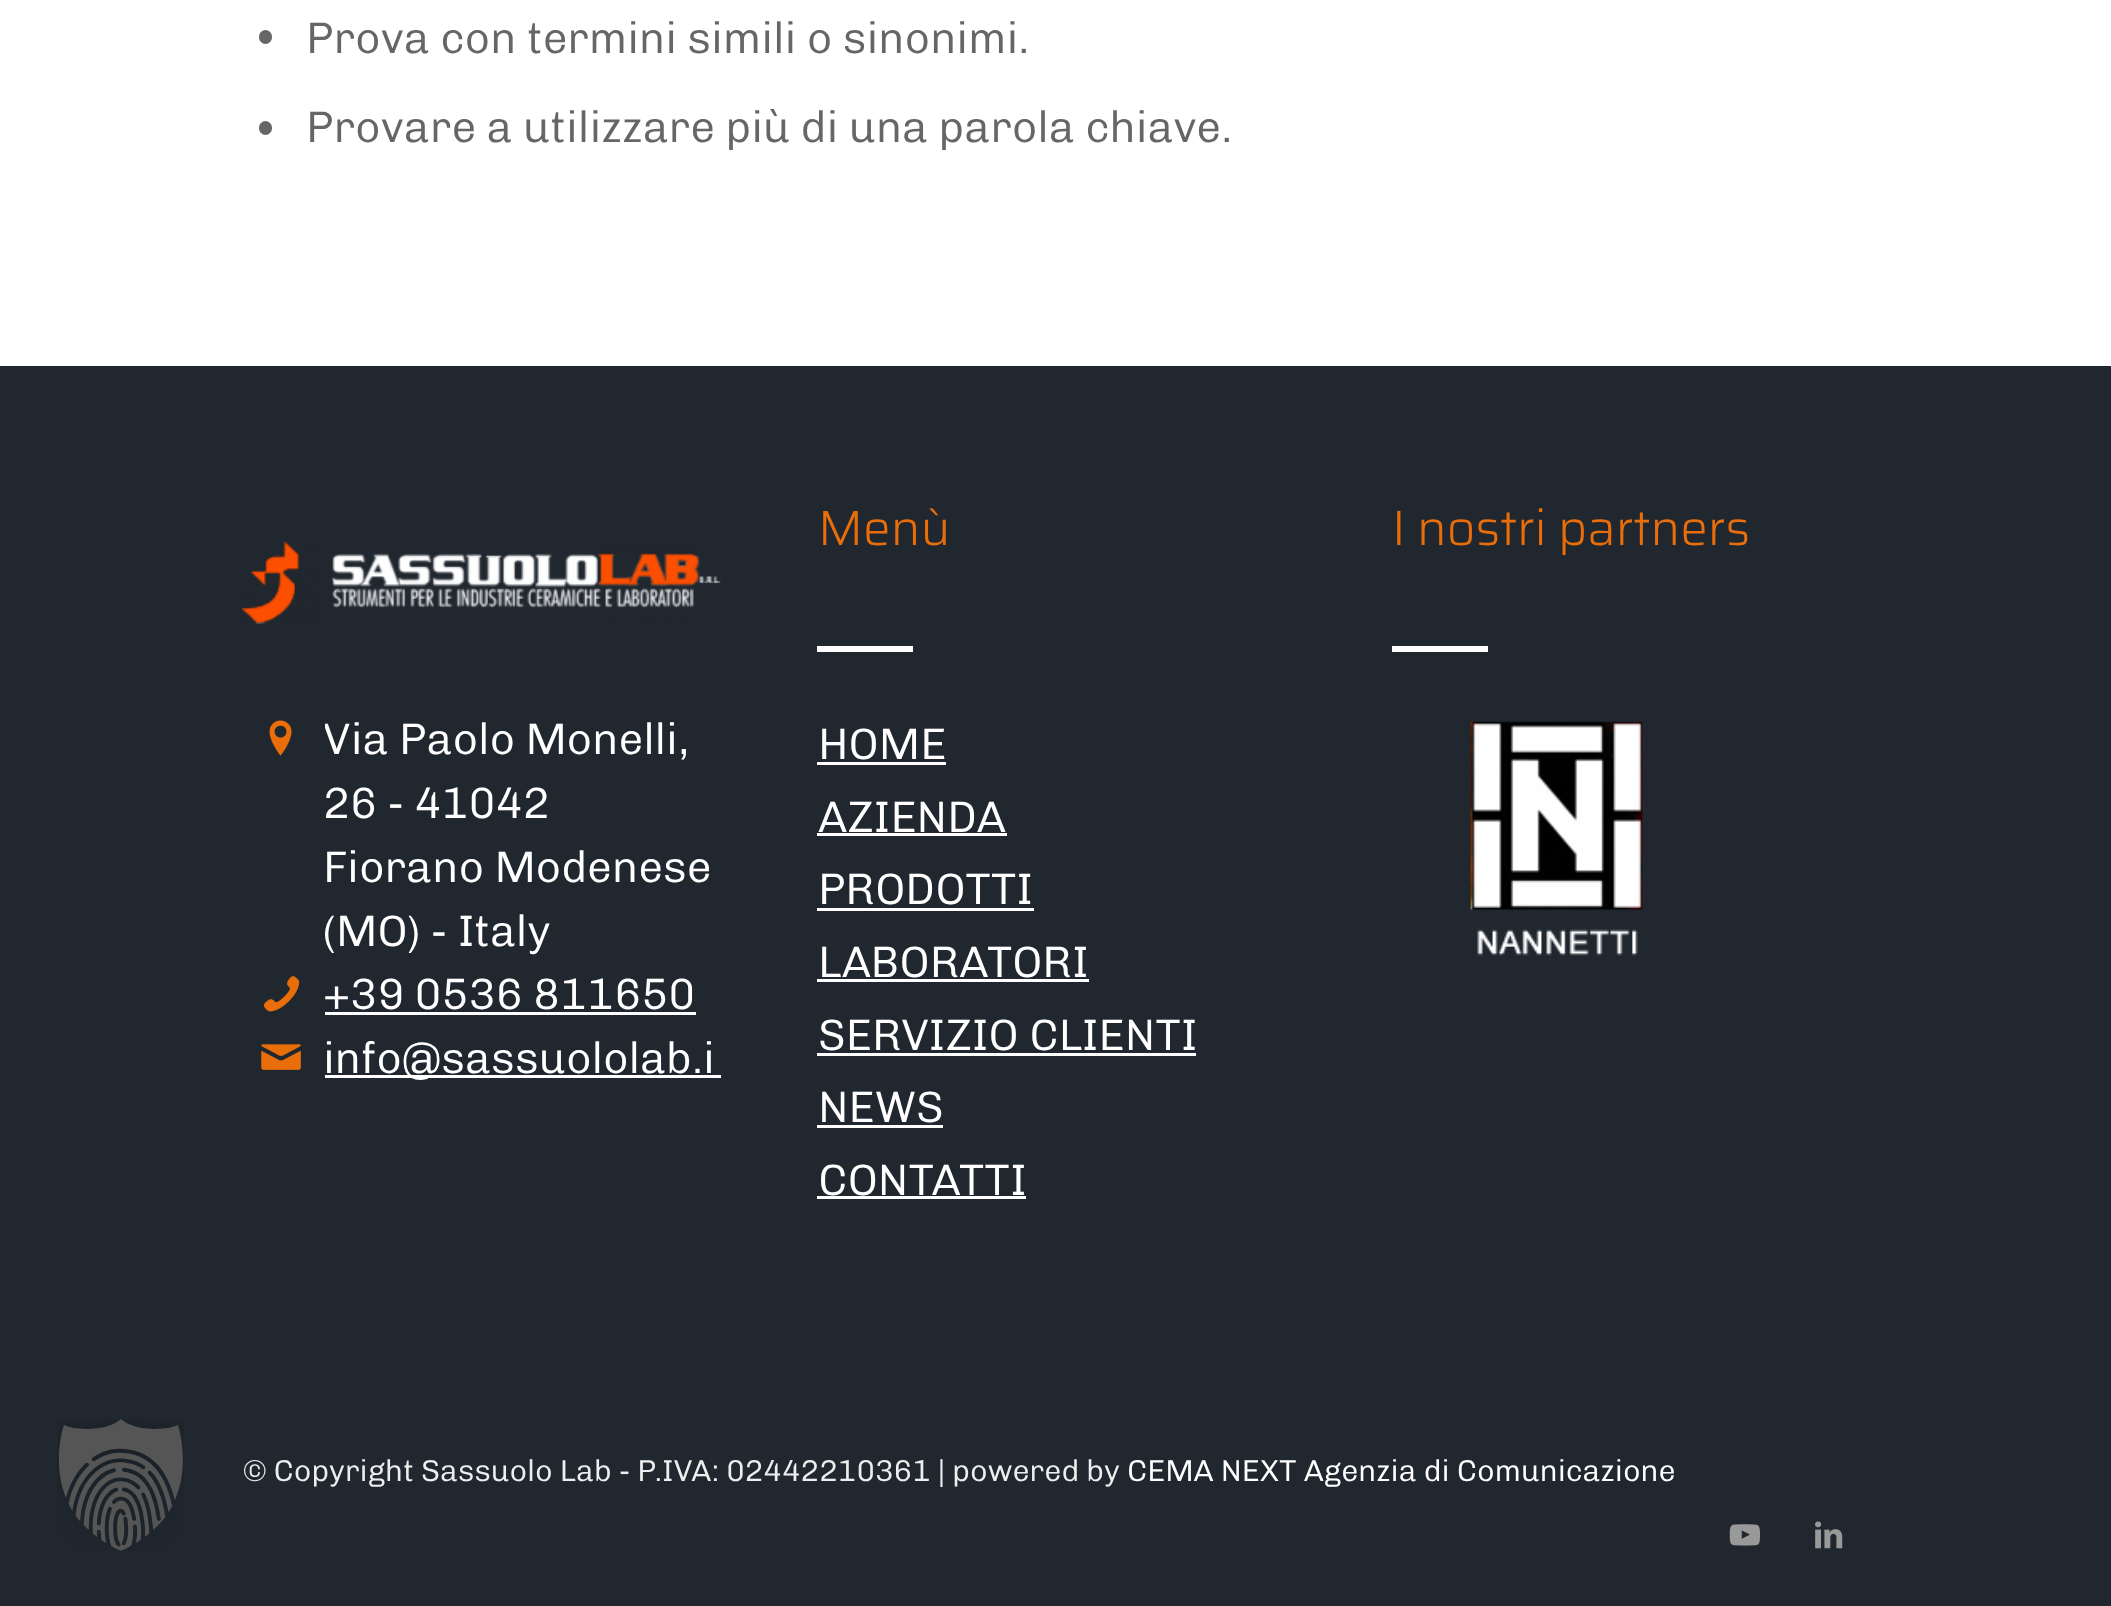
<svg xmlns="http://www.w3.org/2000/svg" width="2111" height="1606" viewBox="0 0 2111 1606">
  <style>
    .t1 { font: 300 44px Chivo; fill: #666; }
    .t2 { font: 300 49.5px Saira; fill: #e96e09; }
    .t3 { font: 300 44px Chivo; fill: #fff; }
    .t4 { font: 300 30.25px Chivo; fill: #eee; }
    .t5 { font: 300 30.25px Chivo; fill: #fff; }
  </style>
  <defs>
    <clipPath id="clip1"><rect x="325" y="707" width="396" height="256"/></clipPath>
  </defs>
  <rect width="100%" height="100%" fill="#fff"/>
  <rect x="0" y="366" width="2111" height="1240" fill="#20272f"/>
  <image x="57" y="1419" width="127" height="132" href="images/1.png"/>
  <rect x="259" y="30" width="13" height="14" rx="6.5" fill="#666"/>
  <text x="306" y="53" class="t1">Prova con termini simili o sinonimi.</text>
  <rect x="259" y="121" width="13" height="14" rx="6.5" fill="#666"/>
  <text x="306" y="142" class="t1">Provare a utilizzare più di una parola chiave.</text>
  <text x="818" y="545" class="t2">Menù</text>
  <rect x="817" y="646" width="96" height="6" fill="#fff"/>
  <text x="818" y="759" class="t3">HOME</text>
  <rect x="817" y="762" width="129" height="3" fill="#fff"/>
  <text x="818" y="832" class="t3">AZIENDA</text>
  <rect x="817" y="833" width="190" height="3" fill="#fff"/>
  <text x="818" y="904" class="t3">PRODOTTI</text>
  <rect x="817" y="908" width="217" height="3" fill="#fff"/>
  <text x="818" y="977" class="t3">LABORATORI</text>
  <rect x="817" y="979" width="272" height="3" fill="#fff"/>
  <text x="818" y="1050" class="t3">SERVIZIO CLIENTI</text>
  <rect x="817" y="1053" width="379" height="3" fill="#fff"/>
  <text x="818" y="1122" class="t3">NEWS</text>
  <rect x="817" y="1125" width="126" height="3" fill="#fff"/>
  <text x="818" y="1195" class="t3">CONTATTI</text>
  <rect x="817" y="1196" width="209" height="3" fill="#fff"/>
  <text x="1392" y="545" class="t2">I nostri partners</text>
  <rect x="1392" y="646" width="96" height="6" fill="#fff"/>
  <image x="1470" y="721" width="173" height="235" href="images/2.png"/>
  <image x="242" y="541" width="479" height="83" href="images/3.png"/>
  <image x="269" y="720" width="23" height="36" href="images/4.png"/>
  <g clip-path="url(#clip1)">
    <text x="323" y="754" class="t3">Via Paolo Monelli,</text>
  </g>
  <text x="323" y="818" class="t3">26 - 41042</text>
  <text x="323" y="882" class="t3">Fiorano Modenese</text>
  <text x="323" y="946" class="t3">(MO) - Italy</text>
  <image x="264" y="976" width="36" height="36" href="images/5.png"/>
  <text x="323" y="1009" class="t3">+39 0536 811650</text>
  <rect x="325" y="1012" width="371" height="3" fill="#fff"/>
  <image x="261" y="1044" width="40" height="26" href="images/6.png"/>
  <rect x="325" y="1075" width="396" height="3" fill="#fff"/>
  <text x="323" y="1073" class="t3">info@sassuololab.i</text>
  <text x="243" y="1481" class="t4">© Copyright Sassuolo Lab - P.IVA: 02442210361 | powered by</text>
  <text x="1127" y="1481" class="t5">CEMA NEXT Agenzia di Comunicazione</text>
  <image x="1729" y="1524" width="31" height="22" href="images/7.png"/>
  <image x="1815" y="1521" width="28" height="28" href="images/8.png"/>
</svg>
